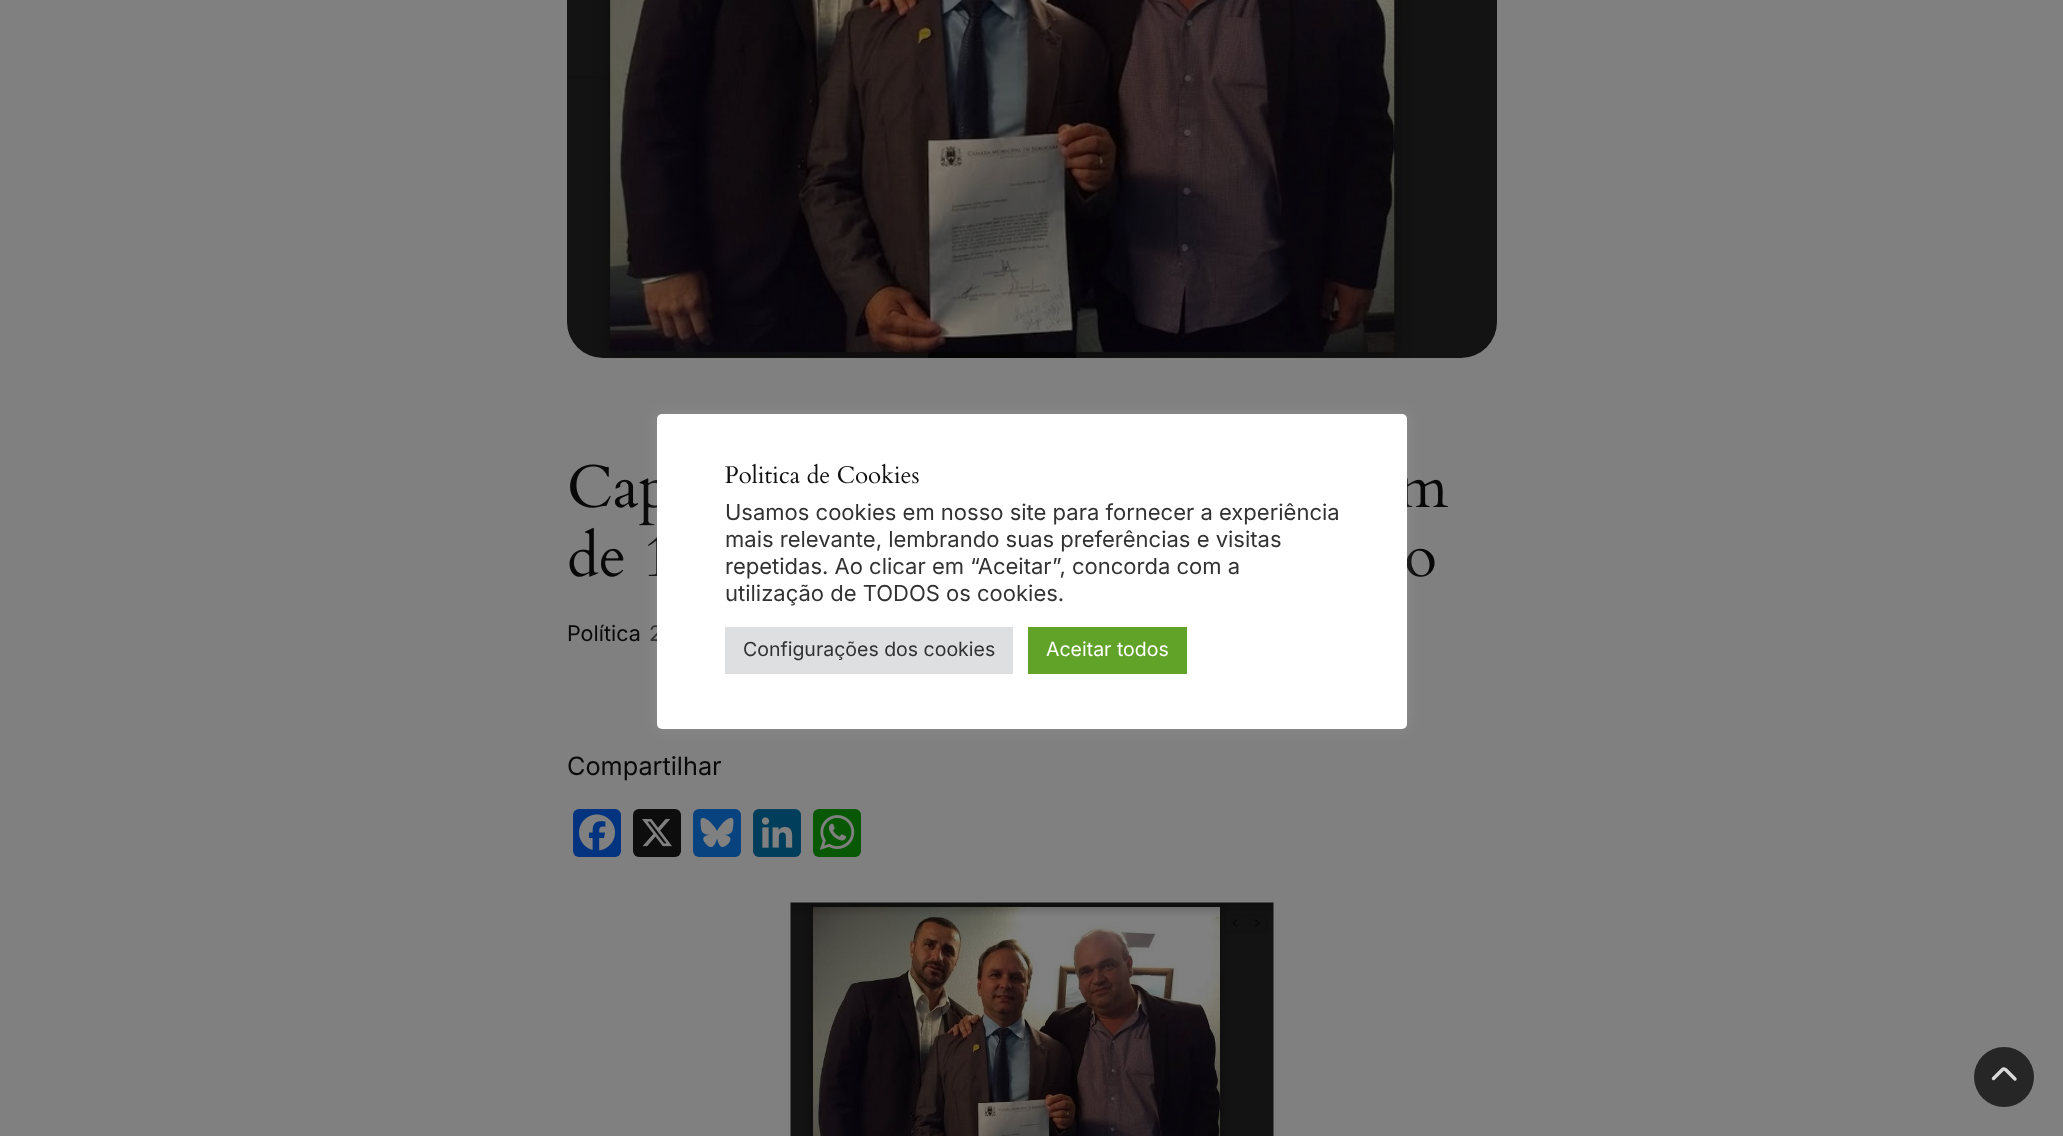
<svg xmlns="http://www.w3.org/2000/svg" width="2063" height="1136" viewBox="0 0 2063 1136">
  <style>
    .t1 { font: 21.5px Inter; fill: #323232; }
    .t2 { font: 22px Inter; fill: #323232; }
    .t3 { font: 19.5px Inter; fill: #323232; }
    .t4 { font: 19.5px Inter; fill: #fff; }
    .t5 { font: 21.5px Inter; fill: #090909; }
    .t6 { font: 25.25px Inter; fill: #090909; }
  </style>
  <rect width="100%" height="100%" fill="#808080"/>
  <image x="570" y="464" width="878" height="62" href="images/3.png"/>
  <image x="569" y="527" width="866" height="50" href="images/4.png"/>
  <rect x="657" y="413" width="750" height="315" rx="5" fill="#acabab4d" filter="blur(7.5px)"/>
  <text x="649" y="641" class="t1">2</text>
  <rect x="657" y="414" width="750" height="315" rx="5" fill="#fff"/>
  <image x="725" y="463" width="194" height="21" href="images/1.png"/>
  <text x="725" y="520" class="t2">Usamos cookies em nosso site para fornecer a experiência</text>
  <text x="725" y="547" class="t2">mais relevante, lembrando suas preferências e visitas</text>
  <text x="725" y="574" class="t2">repetidas. Ao clicar em “Aceitar”, concorda com a</text>
  <text x="725" y="601" class="t2">utilização de TODOS os cookies.</text>
  <rect x="725" y="627" width="288" height="47" fill="#dedfe0"/>
  <text x="743" y="656" class="t3">Configurações dos cookies</text>
  <rect x="1028" y="627" width="159" height="47" fill="#61a229"/>
  <text x="1046" y="656" class="t4">Aceitar todos</text>
  <image x="567" y="0" width="930" height="358" href="images/2.png"/>
  <text x="567" y="641" class="t5">Política</text>
  <text x="567" y="775" class="t6">Compartilhar</text>
  <rect x="573" y="809" width="48" height="48" rx="6" fill="#043380"/>
  <image x="579" y="814" width="36" height="37" href="images/5.png"/>
  <rect x="633" y="809" width="48" height="48" rx="6" fill="#0d0d0d"/>
  <image x="642" y="819" width="30" height="28" href="images/6.png"/>
  <rect x="693" y="809" width="48" height="48" rx="6" fill="#09437f"/>
  <image x="700" y="817" width="34" height="31" href="images/7.png"/>
  <rect x="753" y="809" width="48" height="48" rx="6" fill="#003e5b"/>
  <image x="761" y="817" width="32" height="31" href="images/8.png"/>
  <rect x="813" y="809" width="48" height="48" rx="6" fill="#095805"/>
  <image x="819" y="815" width="36" height="35" href="images/9.png"/>
  <image x="790" y="902" width="484" height="234" href="images/10.png"/>
  <circle cx="2004" cy="1077" r="30" fill="#262626"/>
  <path d="M2015 1079L2005.5 1069.5C2004.5 1069 2003 1069 2002.5 1069.5L1993.5 1078.5" fill="none" stroke="#d9d9d9" stroke-width="3.4" stroke-linecap="round" stroke-linejoin="bevel"/>
</svg>
